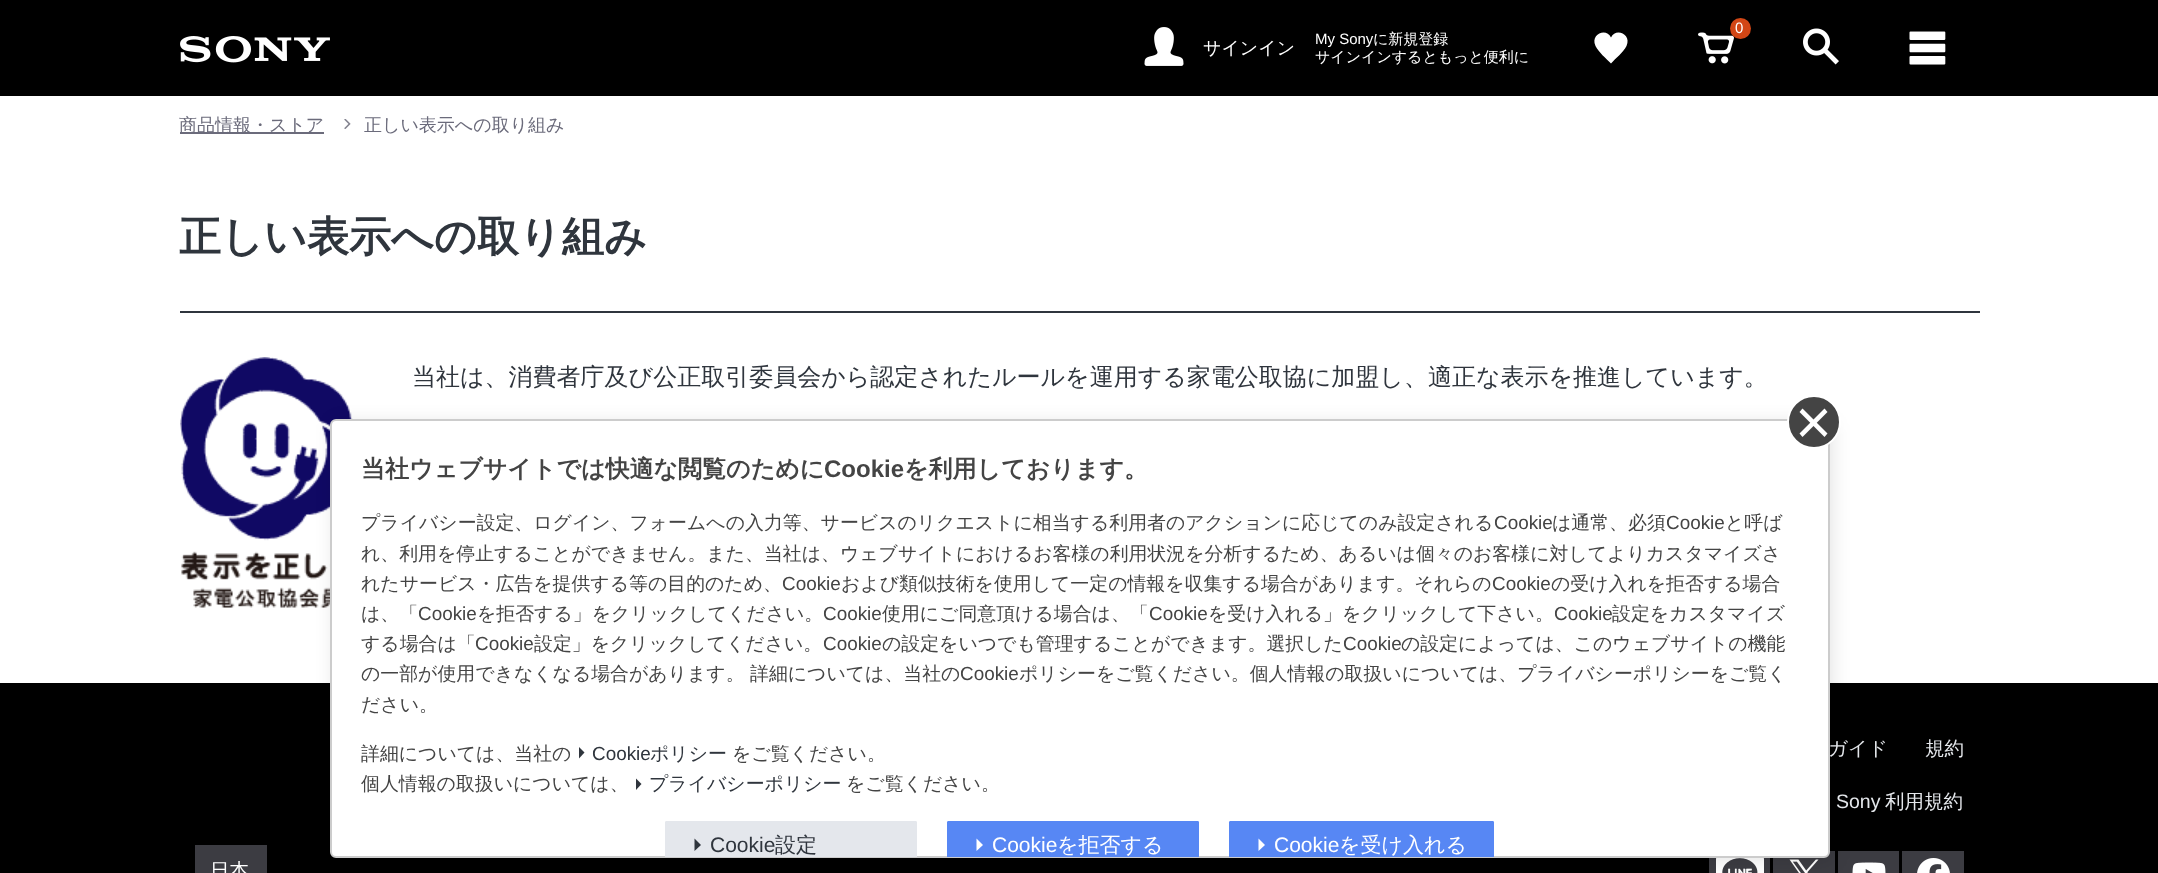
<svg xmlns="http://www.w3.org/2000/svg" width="2158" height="873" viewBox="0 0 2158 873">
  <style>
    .t1 { font: 500 18px WenQuanYi Zen Hei; fill: #fff; }
    .t2 { font: 15px Liberation Sans; fill: #fff; }
    .t3 { font: 500 15px WenQuanYi Zen Hei; fill: #fff; }
    .t4 { font: 500 18px WenQuanYi Zen Hei; fill: #6b6b7b; }
    .t5 { font: bold 42px WenQuanYi Zen Hei; fill: #2f353d; }
    .t6 { font: 500 24px WenQuanYi Zen Hei; fill: #2f353d; }
    .t7 { font: 500 19.5px WenQuanYi Zen Hei; fill: #e4e7eb; }
    .t8 { font: bold 24px WenQuanYi Zen Hei; fill: #444; }
    .t9 { font: bold 24px Liberation Sans; fill: #444; }
    .t10 { font: 500 18.9px WenQuanYi Zen Hei; fill: #444; }
    .t11 { font: 18.9px Liberation Sans; fill: #444; }
    .t12 { font: 18.9px Liberation Sans; fill: #2f353d; }
    .t13 { font: 500 18.9px WenQuanYi Zen Hei; fill: #2f353d; }
    .t14 { font: 21px Liberation Sans; fill: #2f353d; }
    .t15 { font: 500 21px WenQuanYi Zen Hei; fill: #2f353d; }
    .t16 { font: 21px Liberation Sans; fill: #fff; }
    .t17 { font: 500 21px WenQuanYi Zen Hei; fill: #fff; }
    .t18 { font: 19.5px Liberation Sans; fill: #e4e7eb; }
    .t19 { font: 500 19.5px WenQuanYi Zen Hei; fill: #fff; }
  </style>
  <rect width="100%" height="100%" fill="#fff"/>
  <rect x="0" y="0" width="2158" height="96" fill="#000"/>
  <image x="180" y="36" width="150" height="27" href="images/1.png"/>
  <image x="1144" y="27" width="40" height="39" href="images/2.png"/>
  <text x="1203" y="54" class="t1">サインイン</text>
  <text x="1315" y="44" class="t2">My Sony</text>
  <text x="1373" y="44" class="t3">に新規登録</text>
  <text x="1315" y="62" class="t3">サインインするともっと便利に</text>
  <path d="M1611 63.5C1606 58.5 1598.5 52 1595.5 46C1590 34 1606.5 27.5 1611 37.5C1615.5 27.5 1632 34 1626.5 46C1623 52.5 1616 58 1611 63.5Z" fill="#fff"/>
  <image x="1698" y="32" width="36" height="32" href="images/3.png"/>
  <circle cx="1740.5" cy="28.5" r="10.5" fill="#d24615"/>
  <text x="1735" y="33" class="t2">0</text>
  <image x="1803" y="28" width="36" height="37" href="images/4.png"/>
  <image x="1909" y="31" width="37" height="34" href="images/5.png"/>
  <rect x="180" y="132" width="144" height="2" fill="#6b6b7b"/>
  <text x="179" y="131" class="t4">商品情報・ストア</text>
  <image x="344" y="119" width="7" height="10" href="images/6.png"/>
  <text x="364" y="131" class="t4">正しい表示への取り組み</text>
  <rect x="180" y="311" width="1800" height="2" fill="#2f353d"/>
  <text x="179" y="251" class="t5">正しい表示への取り組み</text>
  <image x="180" y="357" width="173" height="251" href="images/7.png"/>
  <text x="412" y="385" class="t6">当社は、消費者庁及び公正取引委員会から認定されたルールを運用する家電公取協に加盟し、適正な表示を推進しています。</text>
  <rect x="0" y="683" width="2158" height="190" fill="#000"/>
  <rect x="1709" y="858" width="61" height="15" fill="#3c3c42"/>
  <image x="1716" y="858" width="48" height="15" href="images/8.png"/>
  <rect x="1773" y="851" width="62" height="22" fill="#3c3c42"/>
  <image x="1789" y="859" width="30" height="14" href="images/9.png"/>
  <rect x="1838" y="851" width="61" height="22" fill="#3c3c42"/>
  <image x="1852" y="862" width="34" height="11" href="images/10.png"/>
  <rect x="333" y="422" width="1500" height="439" rx="6" fill="#0000001a" filter="blur(9px)"/>
  <text x="1828" y="755" class="t7">ガイド</text>
  <rect x="331" y="420" width="1498" height="437" rx="5" fill="#fff" stroke="#ccc" stroke-width="2"/>
  <circle cx="1814" cy="422" r="26" fill="#444" stroke="#fff" stroke-width="2"/>
  <path d="M1799.5 433.5L1824.5 408.5L1827.5 412L1802.5 437Z" fill="#fff"/>
  <path d="M1802.5 408.5L1827.5 433.5L1824.5 437L1799.5 412Z" fill="#fff"/>
  <text x="361" y="477" class="t8">当社ウェブサイトでは快適な閲覧のために</text>
  <text x="824" y="477" class="t9">Cookie</text>
  <text x="904" y="477" class="t8">を利用しております。</text>
  <text x="361" y="529" class="t10">プライバシー設定、ログイン、フォームへの入力等、サービスのリクエストに相当する利用者のアクションに応じてのみ設定される</text>
  <text x="1494" y="529" class="t11">Cookie</text>
  <text x="1552" y="529" class="t10">は通常、必須</text>
  <text x="1666" y="529" class="t11">Cookie</text>
  <text x="1725" y="529" class="t10">と呼ば</text>
  <text x="361" y="560" class="t10">れ、利用を停止することができません。また、当社は、ウェブサイトにおけるお客様の利用状況を分析するため、あるいは個々のお客様に対してよりカスタマイズさ</text>
  <text x="361" y="590" class="t10">れたサービス・広告を提供する等の目的のため、</text>
  <text x="782" y="590" class="t11">Cookie</text>
  <text x="841" y="590" class="t10">および類似技術を使用して一定の情報を収集する場合があります。それらの</text>
  <text x="1492" y="590" class="t11">Cookie</text>
  <text x="1551" y="590" class="t10">の受け入れを拒否する場合</text>
  <text x="361" y="620" class="t10">は、「</text>
  <text x="418" y="620" class="t11">Cookie</text>
  <text x="477" y="620" class="t10">を拒否する」をクリックしてください。</text>
  <text x="823" y="620" class="t11">Cookie</text>
  <text x="882" y="620" class="t10">使用にご同意頂ける場合は、「</text>
  <text x="1149" y="620" class="t11">Cookie</text>
  <text x="1208" y="620" class="t10">を受け入れる」をクリックして下さい。</text>
  <text x="1554" y="620" class="t11">Cookie</text>
  <text x="1612" y="620" class="t10">設定をカスタマイズ</text>
  <text x="361" y="650" class="t10">する場合は「</text>
  <text x="475" y="650" class="t11">Cookie</text>
  <text x="534" y="650" class="t10">設定」をクリックしてください。</text>
  <text x="823" y="650" class="t11">Cookie</text>
  <text x="882" y="650" class="t10">の設定をいつでも管理することができます。選択した</text>
  <text x="1343" y="650" class="t11">Cookie</text>
  <text x="1401" y="650" class="t10">の設定によっては、このウェブサイトの機能</text>
  <text x="361" y="680" class="t10">の一部が使用できなくなる場合があります。</text>
  <text x="750" y="680" class="t10">詳細については、当社の</text>
  <text x="960" y="680" class="t11">Cookie</text>
  <text x="1019" y="680" class="t10">ポリシーをご覧ください。個人情報の取扱いについては、プライバシーポリシーをご覧く</text>
  <text x="361" y="711" class="t10">ださい。</text>
  <text x="361" y="760" class="t10">詳細については、当社の</text>
  <path d="M579 747L584.5 752.5L579 758.5Z" fill="#2f353d"/>
  <text x="592" y="760" class="t12">Cookie</text>
  <text x="650" y="760" class="t13">ポリシー</text>
  <text x="732" y="760" class="t10">をご覧ください。</text>
  <text x="361" y="790" class="t10">個人情報の取扱いについては、</text>
  <path d="M636 778.5L641.5 784L636 790Z" fill="#2f353d"/>
  <text x="649" y="790" class="t13">プライバシーポリシー</text>
  <text x="846" y="790" class="t10">をご覧ください。</text>
  <path d="M666.5 821H915.5C916.5 821 917 821.5 917 822.5V857H665V822.5C665 821.5 665.5 821 666.5 821Z" fill="#e4e7ec"/>
  <path d="M694.5 838.5L701 845L694.5 851Z" fill="#2f353d"/>
  <text x="710" y="852" class="t14">Cookie</text>
  <text x="775" y="852" class="t15">設定</text>
  <path d="M948.5 821H1197.5C1198.5 821 1199 821.5 1199 822.5V857H947V822.5C947 821.5 947.5 821 948.5 821Z" fill="#5787f4"/>
  <path d="M976.5 838.5L983 845L976.5 851Z" fill="#fff"/>
  <text x="992" y="852" class="t16">Cookie</text>
  <text x="1057" y="852" class="t17">を拒否する</text>
  <path d="M1230.5 821H1492.5C1493.5 821 1494 821.5 1494 822.5V857H1229V822.5C1229 821.5 1229.5 821 1230.5 821Z" fill="#5787f4"/>
  <path d="M1258.5 838.5L1265 845L1258.5 851Z" fill="#fff"/>
  <text x="1274" y="852" class="t16">Cookie</text>
  <text x="1339" y="852" class="t17">を受け入れる</text>
  <text x="1925" y="755" class="t7">規約</text>
  <text x="1836" y="808" class="t18">Sony</text>
  <text x="1885" y="808" class="t7">利用規約</text>
  <rect x="1902" y="851" width="62" height="22" fill="#3c3c42"/>
  <image x="1917" y="858" width="33" height="15" href="images/11.png"/>
  <rect x="195" y="845" width="72" height="28" fill="#3c3c42"/>
  <text x="210" y="877" class="t19">日本</text>
</svg>
